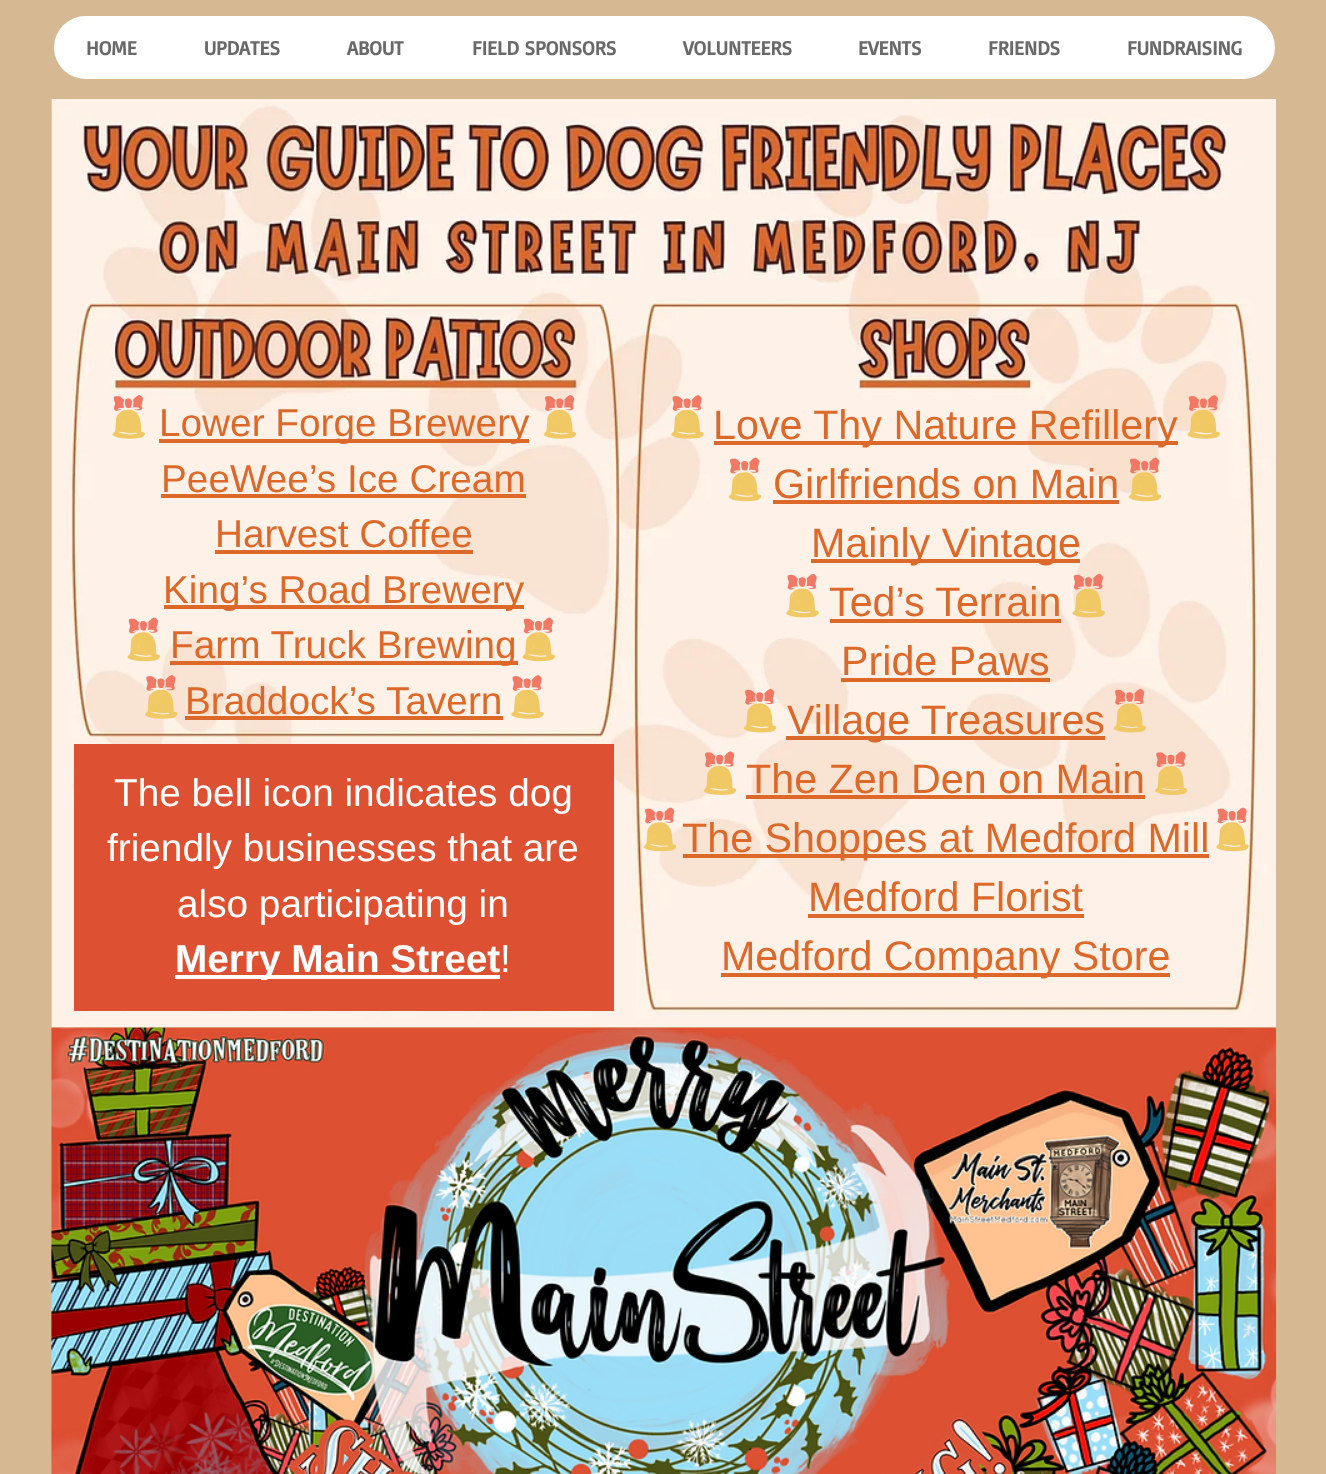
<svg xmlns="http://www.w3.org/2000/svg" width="1326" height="1474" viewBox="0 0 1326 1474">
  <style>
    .t1 { font: bold 20px Basic; fill: #696969; }
    .t2 { font: 38.75px Liberation Sans; fill: #dc692a; }
    .t3 { font: 41.25px Liberation Sans; fill: #dc692a; }
    .t4 { font: 38.75px Liberation Sans; fill: #fff; }
    .t5 { font: bold 38.75px Liberation Sans; fill: #fff; }
  </style>
  <rect width="100%" height="100%" fill="#d6b993"/>
  <rect x="54" y="16" width="1221" height="63" rx="31.5" fill="#fff"/>
  <text x="86" y="55" class="t1">HOME</text>
  <text x="204" y="55" class="t1">UPDATES</text>
  <text x="347" y="55" class="t1">ABOUT</text>
  <text x="472" y="55" class="t1">FIELD SPONSORS</text>
  <text x="683" y="55" class="t1">VOLUNTEERS</text>
  <text x="858" y="55" class="t1">EVENTS</text>
  <text x="988" y="55" class="t1">FRIENDS</text>
  <text x="1127" y="55" class="t1">FUNDRAISING</text>
  <image x="51" y="99" width="1225" height="928" href="images/1.png"/>
  <image x="112" y="395" width="33" height="44" href="images/2.png"/>
  <rect x="159" y="439" width="370" height="4" fill="#dc692a"/>
  <text x="159" y="436" class="t2">Lower Forge Brewery</text>
  <text x="161" y="492" class="t2">PeeWee’s Ice Cream</text>
  <rect x="161" y="494" width="365" height="4" fill="#dc692a"/>
  <text x="215" y="547" class="t2">Harvest Coffee</text>
  <rect x="215" y="550" width="258" height="4" fill="#dc692a"/>
  <rect x="164" y="605" width="360" height="4" fill="#dc692a"/>
  <text x="163" y="603" class="t2">King’s Road Brewery</text>
  <rect x="170" y="661" width="348" height="4" fill="#dc692a"/>
  <text x="170" y="658" class="t2">Farm Truck Brewing</text>
  <text x="185" y="714" class="t2">Braddock’s Tavern</text>
  <rect x="185" y="716" width="318" height="4" fill="#dc692a"/>
  <image x="543" y="395" width="34" height="44" href="images/3.png"/>
  <image x="671" y="395" width="33" height="44" href="images/4.png"/>
  <image x="1187" y="395" width="33" height="44" href="images/5.png"/>
  <rect x="714" y="441" width="464" height="4" fill="#dc692a"/>
  <text x="713" y="439" class="t3">Love Thy Nature Refillery</text>
  <text x="773" y="498" class="t3">Girlfriends on Main</text>
  <rect x="773" y="500" width="346" height="4" fill="#dc692a"/>
  <rect x="811" y="559" width="269" height="4" fill="#dc692a"/>
  <text x="811" y="557" class="t3">Mainly Vintage</text>
  <text x="829" y="616" class="t3">Ted’s Terrain</text>
  <rect x="830" y="619" width="231" height="4" fill="#dc692a"/>
  <text x="841" y="675" class="t3">Pride Paws</text>
  <rect x="841" y="678" width="209" height="4" fill="#dc692a"/>
  <rect x="786" y="736" width="319" height="4" fill="#dc692a"/>
  <text x="787" y="734" class="t3">Village Treasures</text>
  <text x="746" y="793" class="t3">The Zen Den on Main</text>
  <rect x="746" y="795" width="399" height="4" fill="#dc692a"/>
  <rect x="683" y="854" width="526" height="4" fill="#dc692a"/>
  <text x="682" y="852" class="t3">The Shoppes at Medford Mill</text>
  <text x="808" y="911" class="t3">Medford Florist</text>
  <rect x="808" y="914" width="276" height="4" fill="#dc692a"/>
  <rect x="721" y="973" width="449" height="4" fill="#dc692a"/>
  <text x="721" y="970" class="t3">Medford Company Store</text>
  <image x="728" y="457" width="34" height="45" href="images/6.png"/>
  <image x="1128" y="457" width="34" height="45" href="images/7.png"/>
  <image x="786" y="573" width="33" height="45" href="images/8.png"/>
  <image x="1072" y="573" width="33" height="45" href="images/9.png"/>
  <image x="127" y="617" width="33" height="45" href="images/10.png"/>
  <image x="522" y="617" width="33" height="45" href="images/11.png"/>
  <image x="145" y="675" width="33" height="44" href="images/12.png"/>
  <image x="511" y="675" width="33" height="44" href="images/13.png"/>
  <image x="743" y="688" width="34" height="45" href="images/14.png"/>
  <image x="1113" y="688" width="34" height="45" href="images/15.png"/>
  <rect x="74" y="744" width="540" height="267" fill="#de5032"/>
  <text x="114" y="806" class="t4">The bell icon indicates dog</text>
  <text x="107" y="861" class="t4">friendly businesses that are</text>
  <text x="177" y="917" class="t4">also participating in</text>
  <rect x="175" y="975" width="325" height="4" fill="#fff"/>
  <text x="175" y="972" class="t5">Merry Main Street</text>
  <text x="500" y="972" class="t4">!</text>
  <image x="643" y="807" width="34" height="45" href="images/16.png"/>
  <image x="703" y="751" width="34" height="44" href="images/17.png"/>
  <image x="1155" y="751" width="33" height="44" href="images/18.png"/>
  <image x="1216" y="807" width="33" height="45" href="images/19.png"/>
  <image x="51" y="1027" width="1226" height="447" href="images/20.png"/>
</svg>
